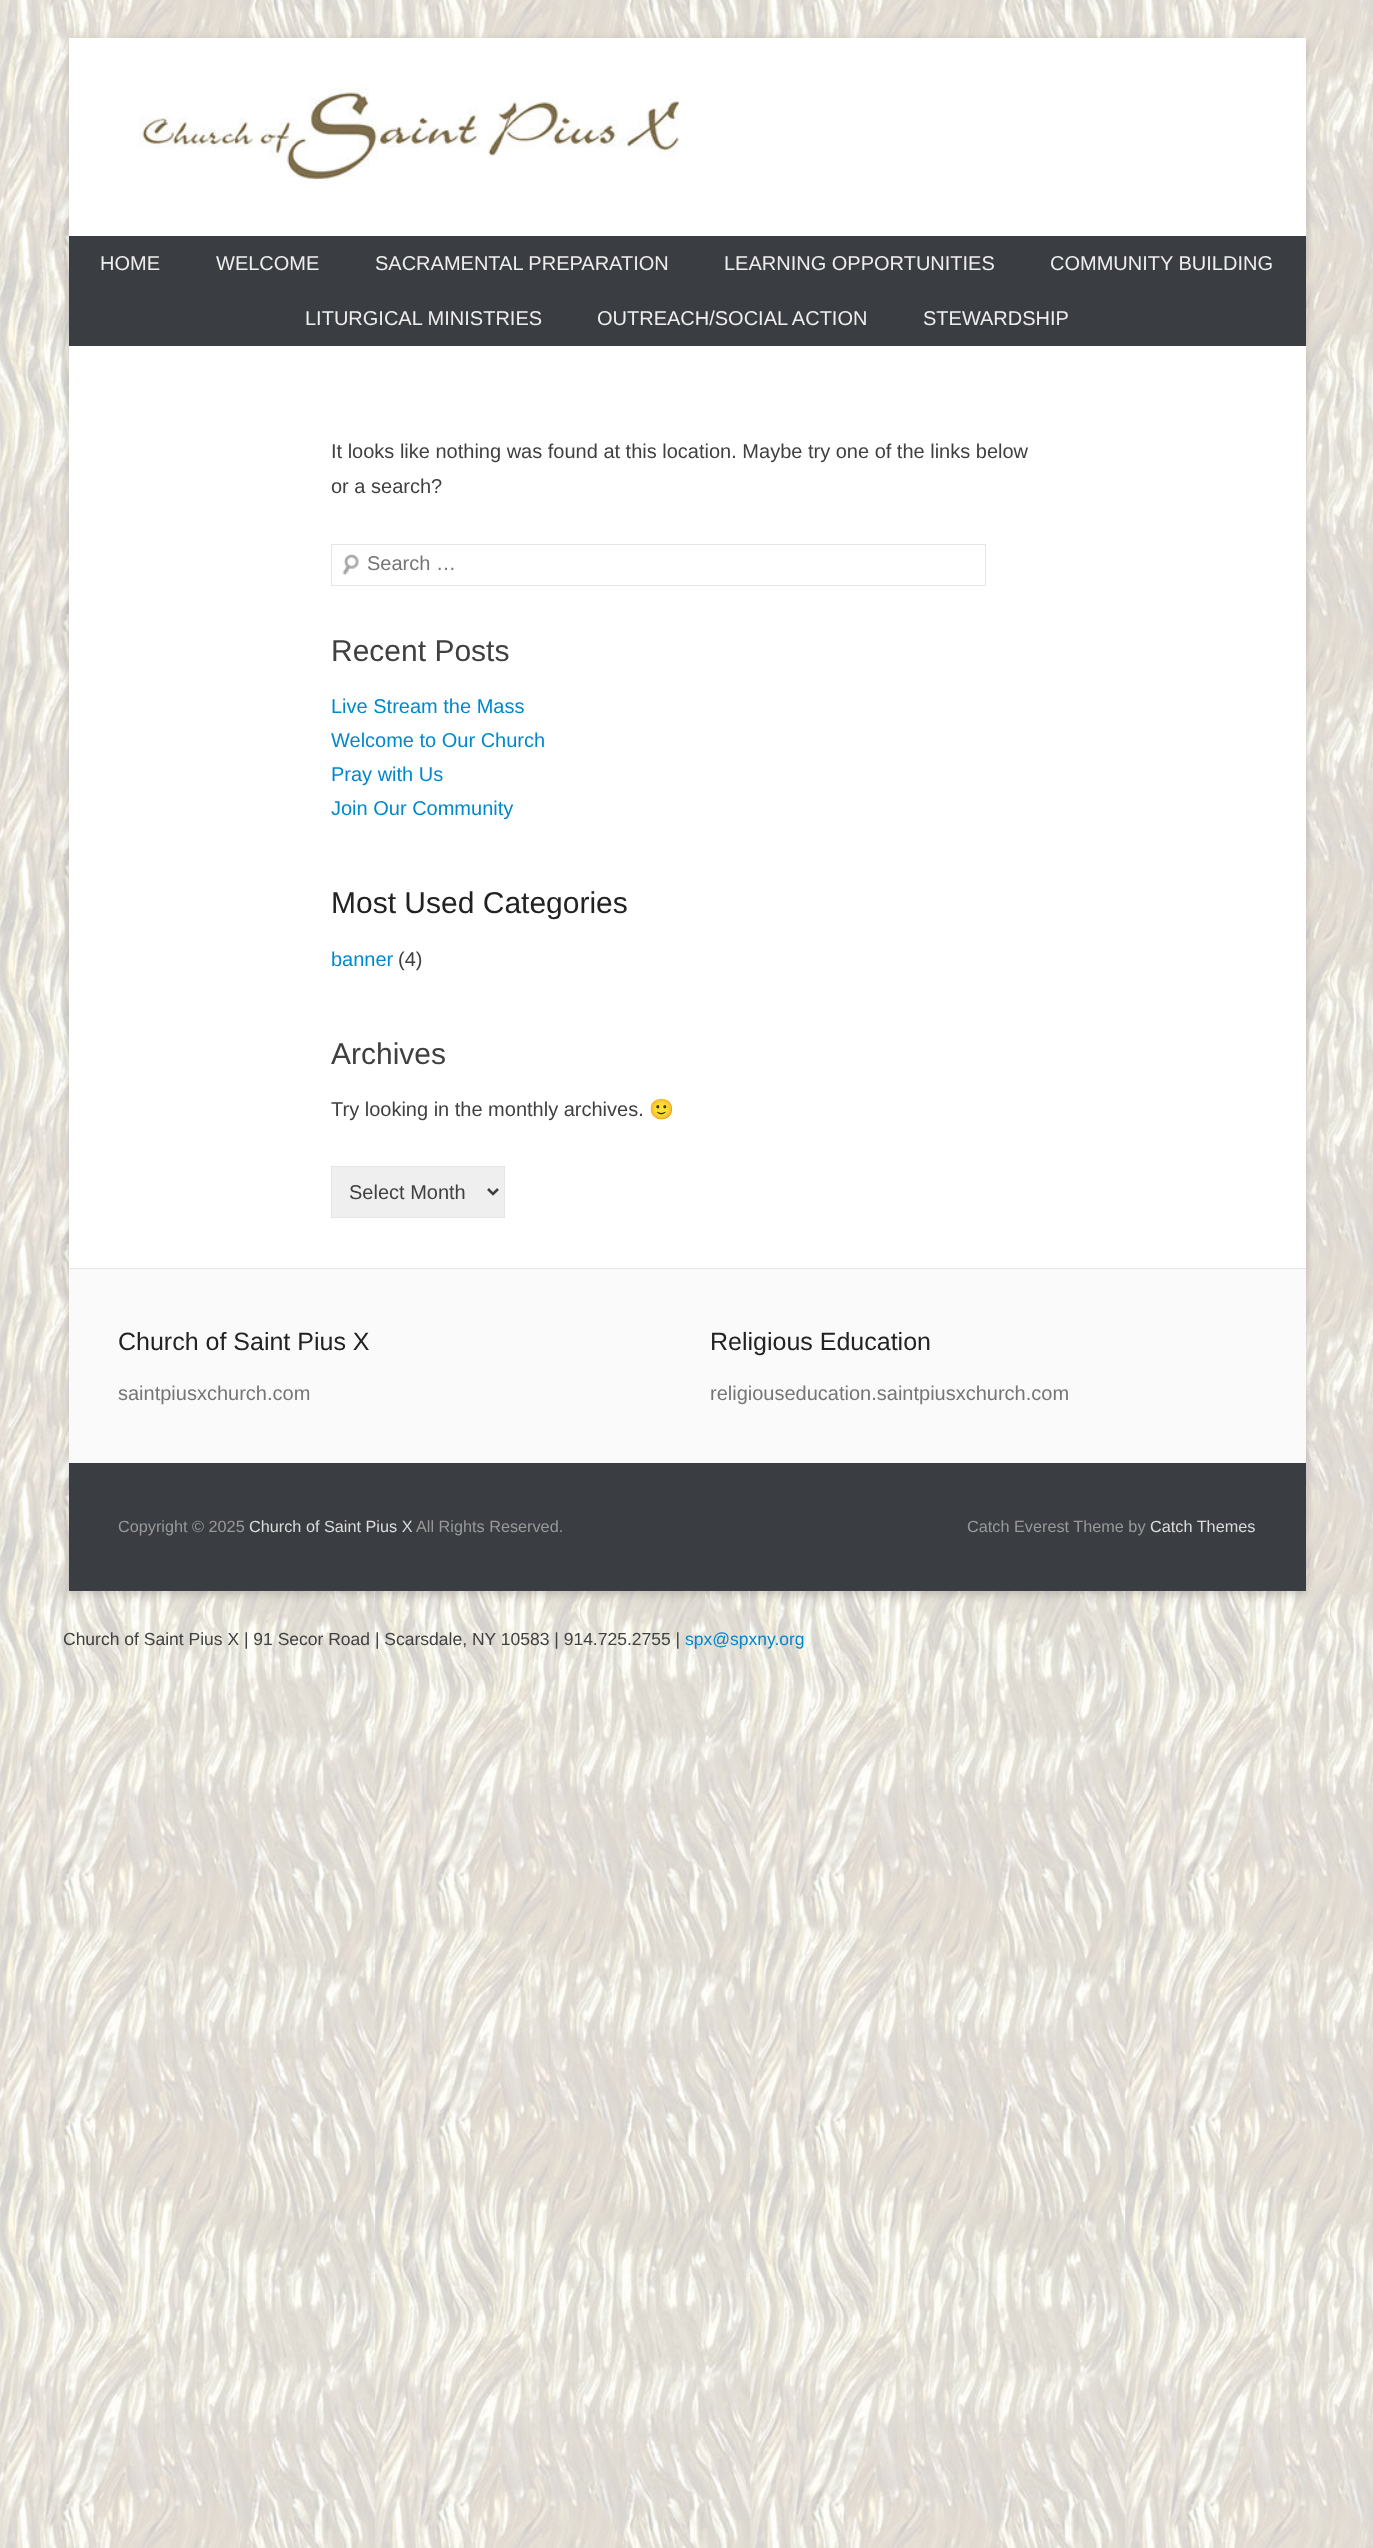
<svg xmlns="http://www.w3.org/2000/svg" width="1373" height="2548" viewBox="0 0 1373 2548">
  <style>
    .t1 { font: 20px Liberation Sans; fill: #eee; }
    .t2 { font: 20px Liberation Sans; fill: #404040; }
    .t3 { font: 20px Liberation Sans; fill: #757575; }
    .t4 { font: 30px Liberation Sans; fill: #404040; }
    .t5 { font: 20px Liberation Sans; fill: #08c; }
    .t6 { font: 30px Liberation Sans; fill: #222; }
    .t7 { font: 20px Noto Color Emoji; fill: #404040; }
    .t8 { font: 25px Liberation Sans; fill: #222; }
    .t9 { font: 16.25px Liberation Sans; fill: #999; }
    .t10 { font: 16.25px Liberation Sans; fill: #ddd; }
    .t11 { font: 17.5px Liberation Sans; fill: #404040; }
    .t12 { font: 17.5px Liberation Sans; fill: #08c; }
  </style>
  <rect width="100%" height="100%" fill="#fff"/>
  <image x="0" y="0" width="1373" height="2548" href="images/1.png"/>
  <rect x="69" y="40" width="1237" height="1554" fill="#6464644d" filter="blur(4px)"/>
  <rect x="69" y="38" width="1237" height="1230" fill="#fff"/>
  <image x="139" y="87" width="541" height="98" href="images/2.png"/>
  <rect x="69" y="236" width="1237" height="110" fill="#3a3d41"/>
  <text x="100" y="270" class="t1">HOME</text>
  <text x="216" y="270" class="t1">WELCOME</text>
  <text x="375" y="270" class="t1">SACRAMENTAL PREPARATION</text>
  <text x="724" y="270" class="t1">LEARNING OPPORTUNITIES</text>
  <text x="1050" y="270" class="t1">COMMUNITY BUILDING</text>
  <text x="305" y="325" class="t1">LITURGICAL MINISTRIES</text>
  <text x="597" y="325" class="t1">OUTREACH/SOCIAL ACTION</text>
  <text x="923" y="325" class="t1">STEWARDSHIP</text>
  <text x="331" y="458" class="t2">It looks like nothing was found at this location. Maybe try one of the links below</text>
  <text x="331" y="493" class="t2">or a search?</text>
  <image x="342" y="554" width="17" height="21" href="images/3.png"/>
  <rect x="331.5" y="544.5" width="654" height="41" fill="none" stroke="#e6e6e6"/>
  <text x="367" y="570" class="t3">Search …</text>
  <text x="331" y="661" class="t4">Recent Posts</text>
  <text x="331" y="713" class="t5">Live Stream the Mass</text>
  <text x="331" y="747" class="t5">Welcome to Our Church</text>
  <text x="331" y="781" class="t5">Pray with Us</text>
  <text x="331" y="815" class="t5">Join Our Community</text>
  <text x="331" y="913" class="t6">Most Used Categories</text>
  <text x="331" y="966" class="t5">banner</text>
  <text x="398" y="966" class="t2">(4)</text>
  <text x="331" y="1064" class="t4">Archives</text>
  <text x="331" y="1116" class="t2">Try looking in the monthly archives.</text>
  <text x="649" y="1116" class="t7">🙂</text>
  <rect x="331.5" y="1166.5" width="173" height="51" fill="#efefef" stroke="#e6e6e6"/>
  <path d="M488 1189L493 1194L498 1189" fill="none" stroke="#404040" stroke-width="2.5"/>
  <text x="349" y="1199" class="t2">Select Month</text>
  <rect x="69" y="1269" width="1237" height="194" fill="#fafafa"/>
  <rect x="69" y="1268" width="1237" height="1" fill="#e6e6e6"/>
  <text x="118" y="1350" class="t8">Church of Saint Pius X</text>
  <text x="118" y="1400" class="t3">saintpiusxchurch.com</text>
  <text x="710" y="1350" class="t8">Religious Education</text>
  <text x="710" y="1400" class="t3">religiouseducation.saintpiusxchurch.com</text>
  <rect x="69" y="1463" width="1237" height="128" fill="#3a3d41"/>
  <text x="118" y="1532" class="t9">Copyright © 2025</text>
  <text x="249" y="1532" class="t10">Church of Saint Pius X</text>
  <text x="416" y="1532" class="t9">All Rights Reserved.</text>
  <text x="967" y="1532" class="t9">Catch Everest Theme by</text>
  <text x="1150" y="1532" class="t10">Catch Themes</text>
  <text x="63" y="1645" class="t11">Church of Saint Pius X | 91 Secor Road | Scarsdale, NY 10583 | 914.725.2755 |</text>
  <text x="685" y="1645" class="t12">spx@spxny.org</text>
</svg>
